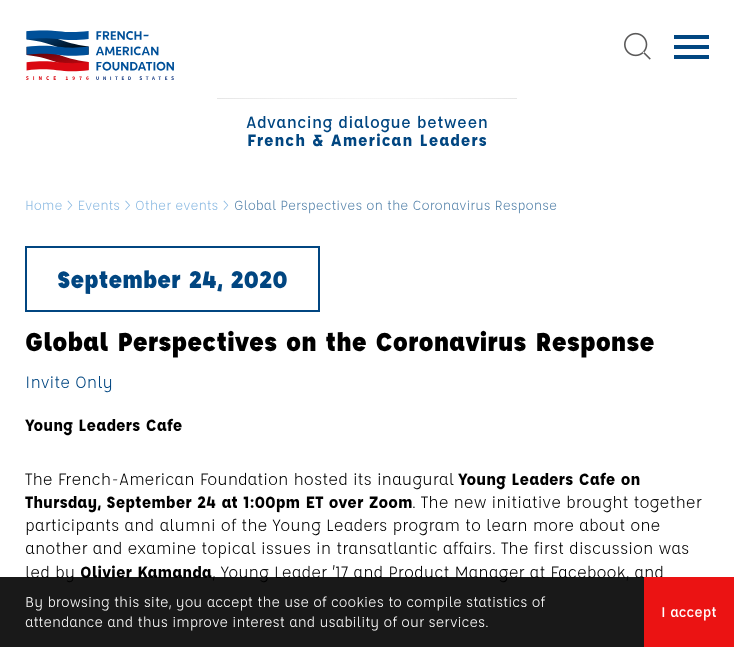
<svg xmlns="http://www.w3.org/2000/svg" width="734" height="647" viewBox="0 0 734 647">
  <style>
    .t1 { font: 500 17.9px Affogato; letter-spacing: 0.4px; fill: #014681; }
    .t2 { font: bold 17.9px Affogato; letter-spacing: 0.9px; fill: #014681; }
    .t3 { font: 14.6px Affogato; fill: #8dbbe3; }
    .t4 { font: 14.6px Affogato; fill: #5885ac; }
    .t5 { font: 900 26px Affogato; fill: #014681; }
    .t6 { font: 900 28.4px Affogato; fill: #000; }
    .t7 { font: 17.9px Affogato; fill: #014681; }
    .t8 { font: bold 17.9px Affogato; fill: #000; }
    .t9 { font: 17.9px Affogato; fill: #000; }
    .t10 { font: 15.45px Affogato; fill: #fff; }
    .t11 { font: 500 15.45px Affogato; fill: #fff; }
  </style>
  <defs>
    <radialGradient id="g1" gradientUnits="userSpaceOnUse" cx="0" cy="0" r="1" gradientTransform="matrix(212 0 0 0.7 367 99)"><stop offset="0" stop-color="#e6e6e6"/><stop offset="0.5" stop-color="#fff"/><stop offset="1" stop-color="#e6e6e6"/></radialGradient>
  </defs>
  <rect width="100%" height="100%" fill="#fff"/>
  <image x="26" y="30" width="148" height="50" href="images/1.png"/>
  <image x="624" y="32" width="27" height="28" href="images/2.png"/>
  <rect x="674" y="35" width="35" height="4" fill="#014681"/>
  <rect x="674" y="45" width="35" height="4" fill="#014681"/>
  <rect x="674" y="55" width="35" height="4" fill="#014681"/>
  <rect x="217" y="98" width="300" height="1" fill="url(#g1)"/>
  <text x="246" y="128" class="t1">Advancing dialogue between</text>
  <text x="247" y="146" class="t2">French &amp; American Leaders</text>
  <text x="25" y="210" class="t3">Home &gt; Events &gt; Other events &gt;</text>
  <text x="234" y="210" class="t4">Global Perspectives on the Coronavirus Response</text>
  <rect x="26" y="247" width="293" height="64" fill="none" stroke="#014681" stroke-width="2"/>
  <text x="57" y="288" class="t5">September 24, 2020</text>
  <text x="25" y="351" class="t6">Global Perspectives on the Coronavirus Response</text>
  <text x="25" y="388" class="t7">Invite Only</text>
  <text x="25" y="431" class="t8">Young Leaders Cafe</text>
  <text x="25" y="485" class="t9">The French-American Foundation hosted its inaugural</text>
  <text x="458" y="485" class="t8">Young Leaders Cafe on</text>
  <text x="25" y="508" class="t8">Thursday, September 24 at 1:00pm ET over Zoom</text>
  <text x="412" y="508" class="t9">. The new initiative brought together</text>
  <text x="25" y="531" class="t9">participants and alumni of the Young Leaders program to learn more about one</text>
  <text x="25" y="554" class="t9">another and examine topical issues in transatlantic affairs. The first discussion was</text>
  <text x="25" y="578" class="t9">led by</text>
  <text x="80" y="578" class="t8">Olivier Kamanda</text>
  <text x="212" y="578" class="t9">, Young Leader ’17 and Product Manager at Facebook, and</text>
  <rect x="0" y="577" width="644" height="70" fill="#000000e6"/>
  <text x="25" y="607" class="t10">By browsing this site, you accept the use of cookies to compile statistics of</text>
  <rect x="644" y="577" width="90" height="70" fill="#eb1313"/>
  <text x="661" y="617" class="t11">I accept</text>
  <text x="25" y="627" class="t10">attendance and thus improve interest and usability of our services.</text>
</svg>
